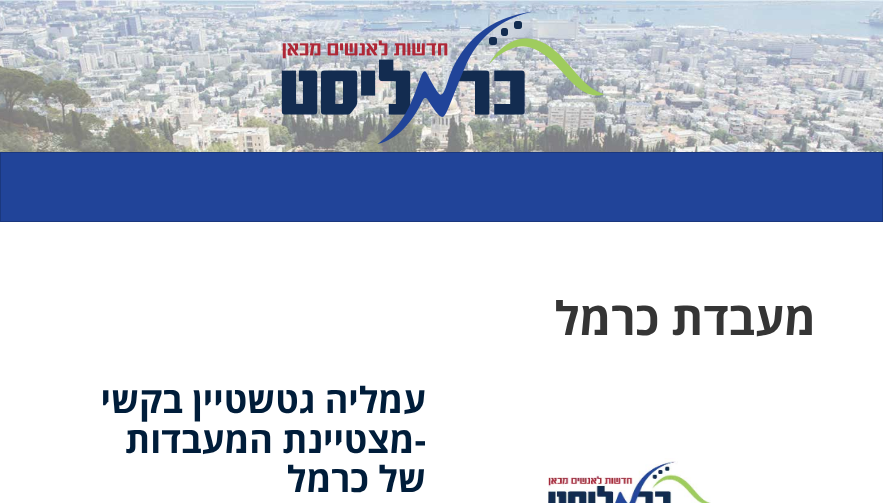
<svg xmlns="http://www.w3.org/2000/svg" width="888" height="503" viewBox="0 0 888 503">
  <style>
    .t1 { font: bold 46px Open Sans; direction: rtl; fill: #353535; }
    .t2 { font: bold 36px Open Sans; direction: rtl; fill: #001d3a; }
  </style>
  <rect width="100%" height="100%" fill="#fff"/>
  <image x="0" y="0" width="883" height="152" href="images/1.png"/>
  <image x="281" y="11" width="324" height="133" href="images/2.png"/>
  <rect x="0.5" y="152.5" width="882" height="69" fill="#214499" stroke="#1b387e"/>
  <text x="816" y="335" class="t1">מעבדת כרמל</text>
  <image x="548" y="458" width="163" height="45" href="images/3.png"/>
  <text x="426" y="413" class="t2">עמליה גטשטיין בקשי</text>
  <text x="426" y="453" class="t2">-מצטיינת המעבדות</text>
  <text x="426" y="492" class="t2">של כרמל</text>
</svg>
